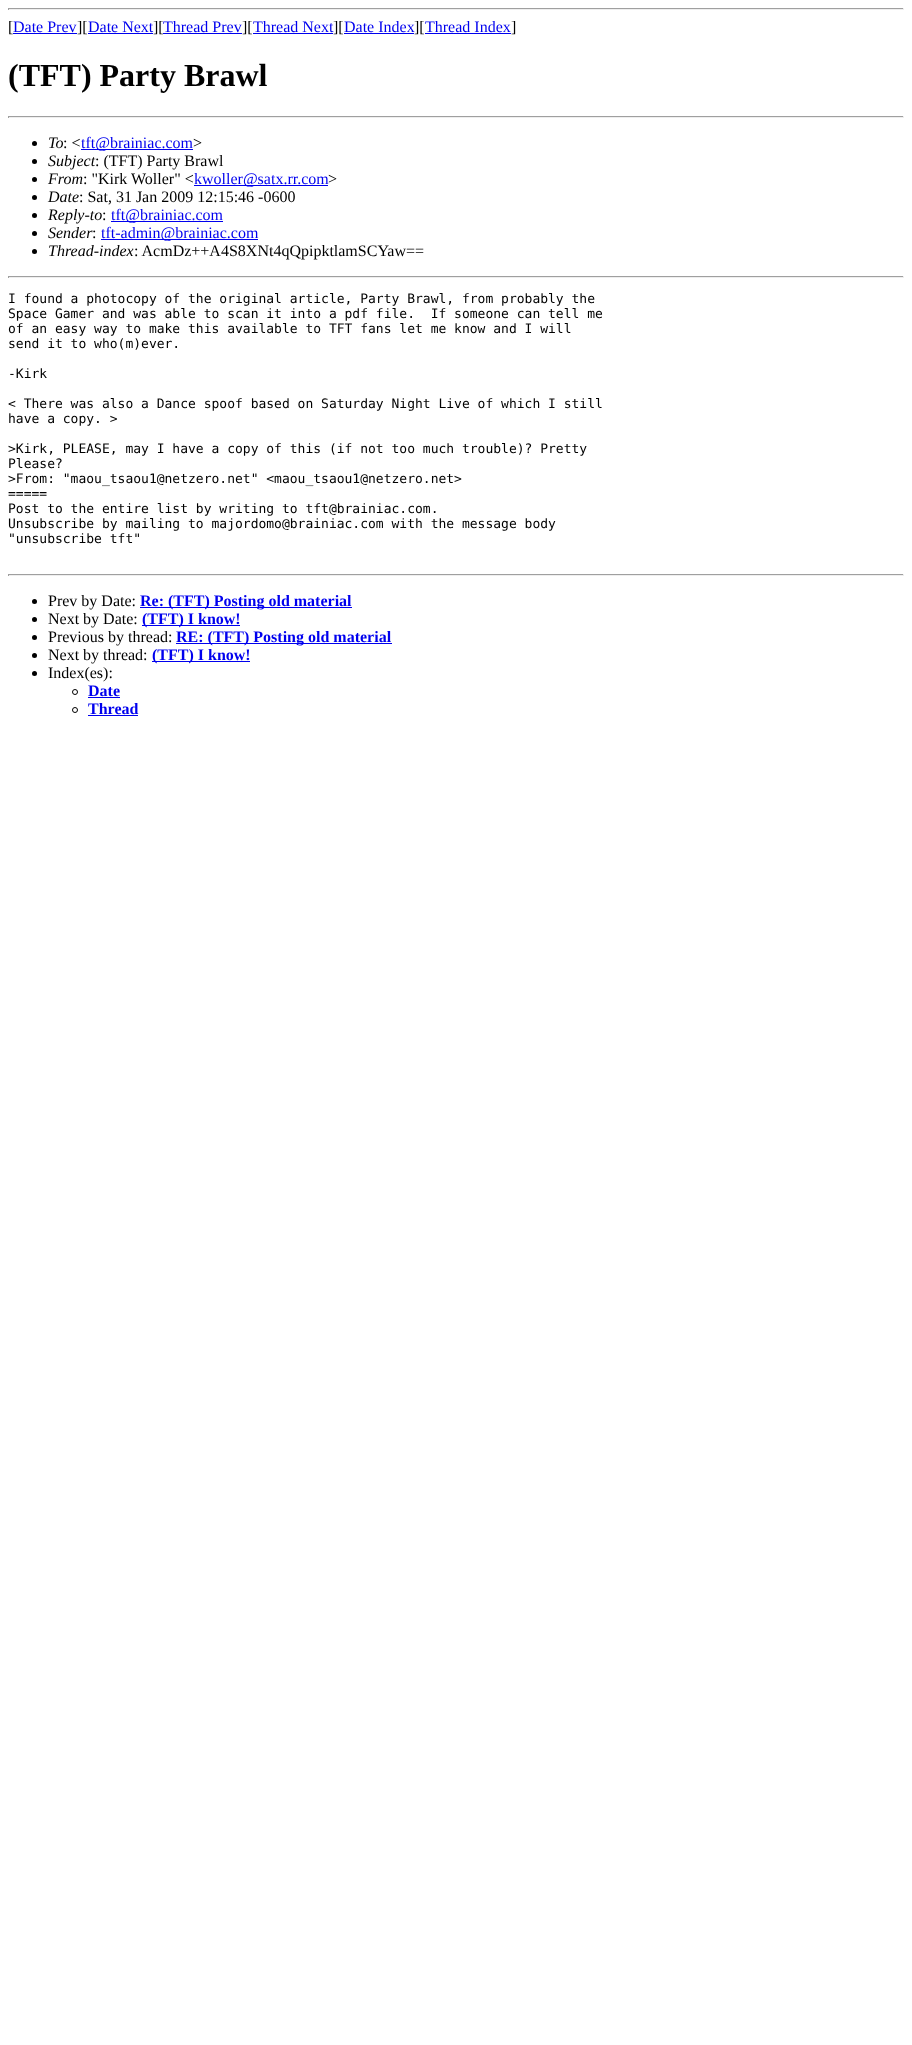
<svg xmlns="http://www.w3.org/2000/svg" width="912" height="2045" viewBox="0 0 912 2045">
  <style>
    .t1 { font: 16px Liberation Serif; fill: #000; }
    .t2 { font: 16px Liberation Serif; fill: #00e; }
    .t3 { font: bold 32px Liberation Serif; fill: #000; }
    .t4 { font: italic 16px Liberation Serif; fill: #000; }
    .t5 { font: 13px DejaVu Sans Mono; fill: #000; }
    .t6 { font: bold 16px Liberation Serif; fill: #00e; }
  </style>
  <rect width="100%" height="100%" fill="#fff"/>
  <rect x="8" y="8" width="896" height="1" fill="#9f9f9f"/>
  <rect x="903" y="8" width="1" height="2" fill="#eee"/>
  <rect x="8" y="9" width="896" height="1" fill="#eee"/>
  <rect x="8" y="8" width="1" height="2" fill="#9f9f9f"/>
  <text x="8" y="32" class="t1">[</text>
  <text x="13" y="32" class="t2">Date Prev</text>
  <rect x="13" y="33" width="64" height="1" fill="#00e"/>
  <text x="77" y="32" class="t1">][</text>
  <text x="88" y="32" class="t2">Date Next</text>
  <rect x="88" y="33" width="65" height="1" fill="#00e"/>
  <text x="153" y="32" class="t1">][</text>
  <text x="163" y="32" class="t2">Thread Prev</text>
  <rect x="163" y="33" width="79" height="1" fill="#00e"/>
  <text x="242" y="32" class="t1">][</text>
  <text x="253" y="32" class="t2">Thread Next</text>
  <rect x="253" y="33" width="80" height="1" fill="#00e"/>
  <text x="333" y="32" class="t1">][</text>
  <text x="344" y="32" class="t2">Date Index</text>
  <rect x="344" y="33" width="70" height="1" fill="#00e"/>
  <text x="414" y="32" class="t1">][</text>
  <text x="425" y="32" class="t2">Thread Index</text>
  <rect x="425" y="33" width="86" height="1" fill="#00e"/>
  <text x="511" y="32" class="t1">]</text>
  <text x="8" y="86" class="t3">(TFT) Party Brawl</text>
  <rect x="8" y="116" width="896" height="1" fill="#9f9f9f"/>
  <rect x="903" y="116" width="1" height="2" fill="#eee"/>
  <rect x="8" y="117" width="896" height="1" fill="#eee"/>
  <rect x="8" y="116" width="1" height="2" fill="#9f9f9f"/>
  <circle cx="34.5" cy="143.5" r="2.5" fill="#000"/>
  <text x="48" y="148" class="t4">To</text>
  <text x="63" y="148" class="t1">: &lt;</text>
  <rect x="81" y="149" width="112" height="1" fill="#00e"/>
  <text x="81" y="148" class="t2">tft@brainiac.com</text>
  <text x="193" y="148" class="t1">&gt;</text>
  <circle cx="34.5" cy="161.5" r="2.5" fill="#000"/>
  <text x="48" y="166" class="t4">Subject</text>
  <text x="95" y="166" class="t1">: (TFT) Party Brawl</text>
  <circle cx="34.5" cy="179.5" r="2.5" fill="#000"/>
  <text x="48" y="184" class="t4">From</text>
  <text x="83" y="184" class="t1">: "Kirk Woller" &lt;</text>
  <rect x="194" y="185" width="134" height="1" fill="#00e"/>
  <text x="194" y="184" class="t2">kwoller@satx.rr.com</text>
  <text x="328" y="184" class="t1">&gt;</text>
  <circle cx="34.5" cy="197.5" r="2.5" fill="#000"/>
  <text x="48" y="202" class="t4">Date</text>
  <text x="79" y="202" class="t1">: Sat, 31 Jan 2009 12:15:46 -0600</text>
  <circle cx="34.5" cy="215.5" r="2.5" fill="#000"/>
  <text x="48" y="220" class="t4">Reply-to</text>
  <text x="102" y="220" class="t1">:</text>
  <rect x="111" y="221" width="112" height="1" fill="#00e"/>
  <text x="111" y="220" class="t2">tft@brainiac.com</text>
  <circle cx="34.5" cy="233.5" r="2.5" fill="#000"/>
  <text x="48" y="238" class="t4">Sender</text>
  <text x="92" y="238" class="t1">:</text>
  <rect x="101" y="239" width="157" height="1" fill="#00e"/>
  <text x="101" y="238" class="t2">tft-admin@brainiac.com</text>
  <circle cx="34.5" cy="251.5" r="2.5" fill="#000"/>
  <text x="48" y="256" class="t4">Thread-index</text>
  <text x="134" y="256" class="t1">: AcmDz++A4S8XNt4qQpipktlamSCYaw==</text>
  <rect x="8" y="276" width="896" height="1" fill="#9f9f9f"/>
  <rect x="903" y="276" width="1" height="2" fill="#eee"/>
  <rect x="8" y="277" width="896" height="1" fill="#eee"/>
  <rect x="8" y="276" width="1" height="2" fill="#9f9f9f"/>
  <text x="8" y="303" class="t5">I found a photocopy of the original article, Party Brawl, from probably the</text>
  <text x="8" y="318" class="t5" xml:space="preserve">Space Gamer and was able to scan it into a pdf file.  If someone can tell me</text>
  <text x="8" y="333" class="t5">of an easy way to make this available to TFT fans let me know and I will</text>
  <text x="8" y="348" class="t5">send it to who(m)ever.</text>
  <text x="8" y="378" class="t5">-Kirk</text>
  <text x="8" y="408" class="t5">&lt; There was also a Dance spoof based on Saturday Night Live of which I still</text>
  <text x="8" y="423" class="t5">have a copy. &gt;</text>
  <text x="8" y="453" class="t5">&gt;Kirk, PLEASE, may I have a copy of this (if not too much trouble)? Pretty</text>
  <text x="8" y="468" class="t5">Please?</text>
  <text x="8" y="483" class="t5">&gt;From: "maou_tsaou1@netzero.net" &lt;maou_tsaou1@netzero.net&gt;</text>
  <text x="8" y="498" class="t5">=====</text>
  <text x="8" y="513" class="t5">Post to the entire list by writing to tft@brainiac.com.</text>
  <text x="8" y="528" class="t5">Unsubscribe by mailing to majordomo@brainiac.com with the message body</text>
  <text x="8" y="543" class="t5">"unsubscribe tft"</text>
  <rect x="8" y="574" width="896" height="1" fill="#9f9f9f"/>
  <rect x="903" y="574" width="1" height="2" fill="#eee"/>
  <rect x="8" y="575" width="896" height="1" fill="#eee"/>
  <rect x="8" y="574" width="1" height="2" fill="#9f9f9f"/>
  <circle cx="34.5" cy="601.5" r="2.5" fill="#000"/>
  <text x="48" y="606" class="t1">Prev by Date:</text>
  <rect x="140" y="607" width="212" height="1" fill="#00e"/>
  <text x="140" y="606" class="t6">Re: (TFT) Posting old material</text>
  <circle cx="34.5" cy="619.5" r="2.5" fill="#000"/>
  <text x="48" y="624" class="t1">Next by Date:</text>
  <rect x="142" y="625" width="98" height="1" fill="#00e"/>
  <text x="142" y="624" class="t6">(TFT) I know!</text>
  <circle cx="34.5" cy="637.5" r="2.5" fill="#000"/>
  <text x="48" y="642" class="t1">Previous by thread:</text>
  <rect x="176" y="643" width="216" height="1" fill="#00e"/>
  <text x="176" y="642" class="t6">RE: (TFT) Posting old material</text>
  <circle cx="34.5" cy="655.5" r="2.5" fill="#000"/>
  <text x="48" y="660" class="t1">Next by thread:</text>
  <rect x="152" y="661" width="98" height="1" fill="#00e"/>
  <text x="152" y="660" class="t6">(TFT) I know!</text>
  <circle cx="34.5" cy="673.5" r="2.5" fill="#000"/>
  <text x="48" y="678" class="t1">Index(es):</text>
  <circle cx="75" cy="692" r="2.5" fill="none" stroke="#000"/>
  <text x="88" y="696" class="t6">Date</text>
  <rect x="88" y="697" width="32" height="1" fill="#00e"/>
  <circle cx="75" cy="710" r="2.5" fill="none" stroke="#000"/>
  <text x="88" y="714" class="t6">Thread</text>
  <rect x="88" y="715" width="50" height="1" fill="#00e"/>
</svg>
